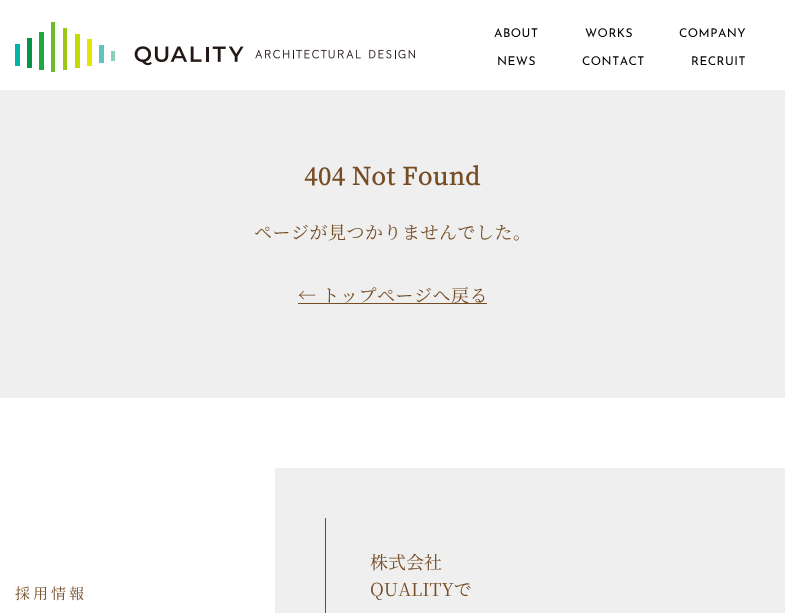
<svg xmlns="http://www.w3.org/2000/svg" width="785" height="613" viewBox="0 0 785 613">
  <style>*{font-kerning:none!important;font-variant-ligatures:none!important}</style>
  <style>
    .t1 { font: 100 12px Josefin Sans; letter-spacing: 0.5px; fill: #000; }
    .t2 { font: bold 24px Noto Serif JP; letter-spacing: 0.5px; fill: #754c24; }
    .t3 { font: 200 18px Noto Serif JP; letter-spacing: 0.5px; fill: #754c24; }
    .t4 { font: 200 15px Noto Serif JP; letter-spacing: 3px; fill: #754c24; }
    .t5 { font: 200 18px Noto Serif JP; fill: #754c24; }
  </style>
  <rect width="100%" height="100%" fill="#fff"/>
  <image x="15" y="22" width="400" height="50" href="images/1.png"/>
  <text x="494" y="37" class="t1">ABOUT</text>
  <text x="585" y="37" class="t1">WORKS</text>
  <text x="679" y="37" class="t1">COMPANY</text>
  <text x="497" y="65" class="t1">NEWS</text>
  <text x="582" y="65" class="t1">CONTACT</text>
  <text x="691" y="65" class="t1">RECRUIT</text>
  <rect x="0" y="90" width="785" height="308" fill="#efefef"/>
  <text x="304" y="185" class="t2">404 Not Found</text>
  <text x="254" y="239" class="t3">ページが見つかりませんでした。</text>
  <rect x="298" y="303" width="189" height="1" fill="#754c24"/>
  <text x="298" y="302" class="t3">← トップページへ戻る</text>
  <text x="15" y="599" class="t4">採用情報</text>
  <rect x="275" y="468" width="510" height="145" fill="#efefef"/>
  <rect x="325" y="518" width="1" height="95" fill="#754c24"/>
  <text x="370" y="569" class="t5">株式会社</text>
  <text x="370" y="596" class="t5">QUALITYで</text>
</svg>
